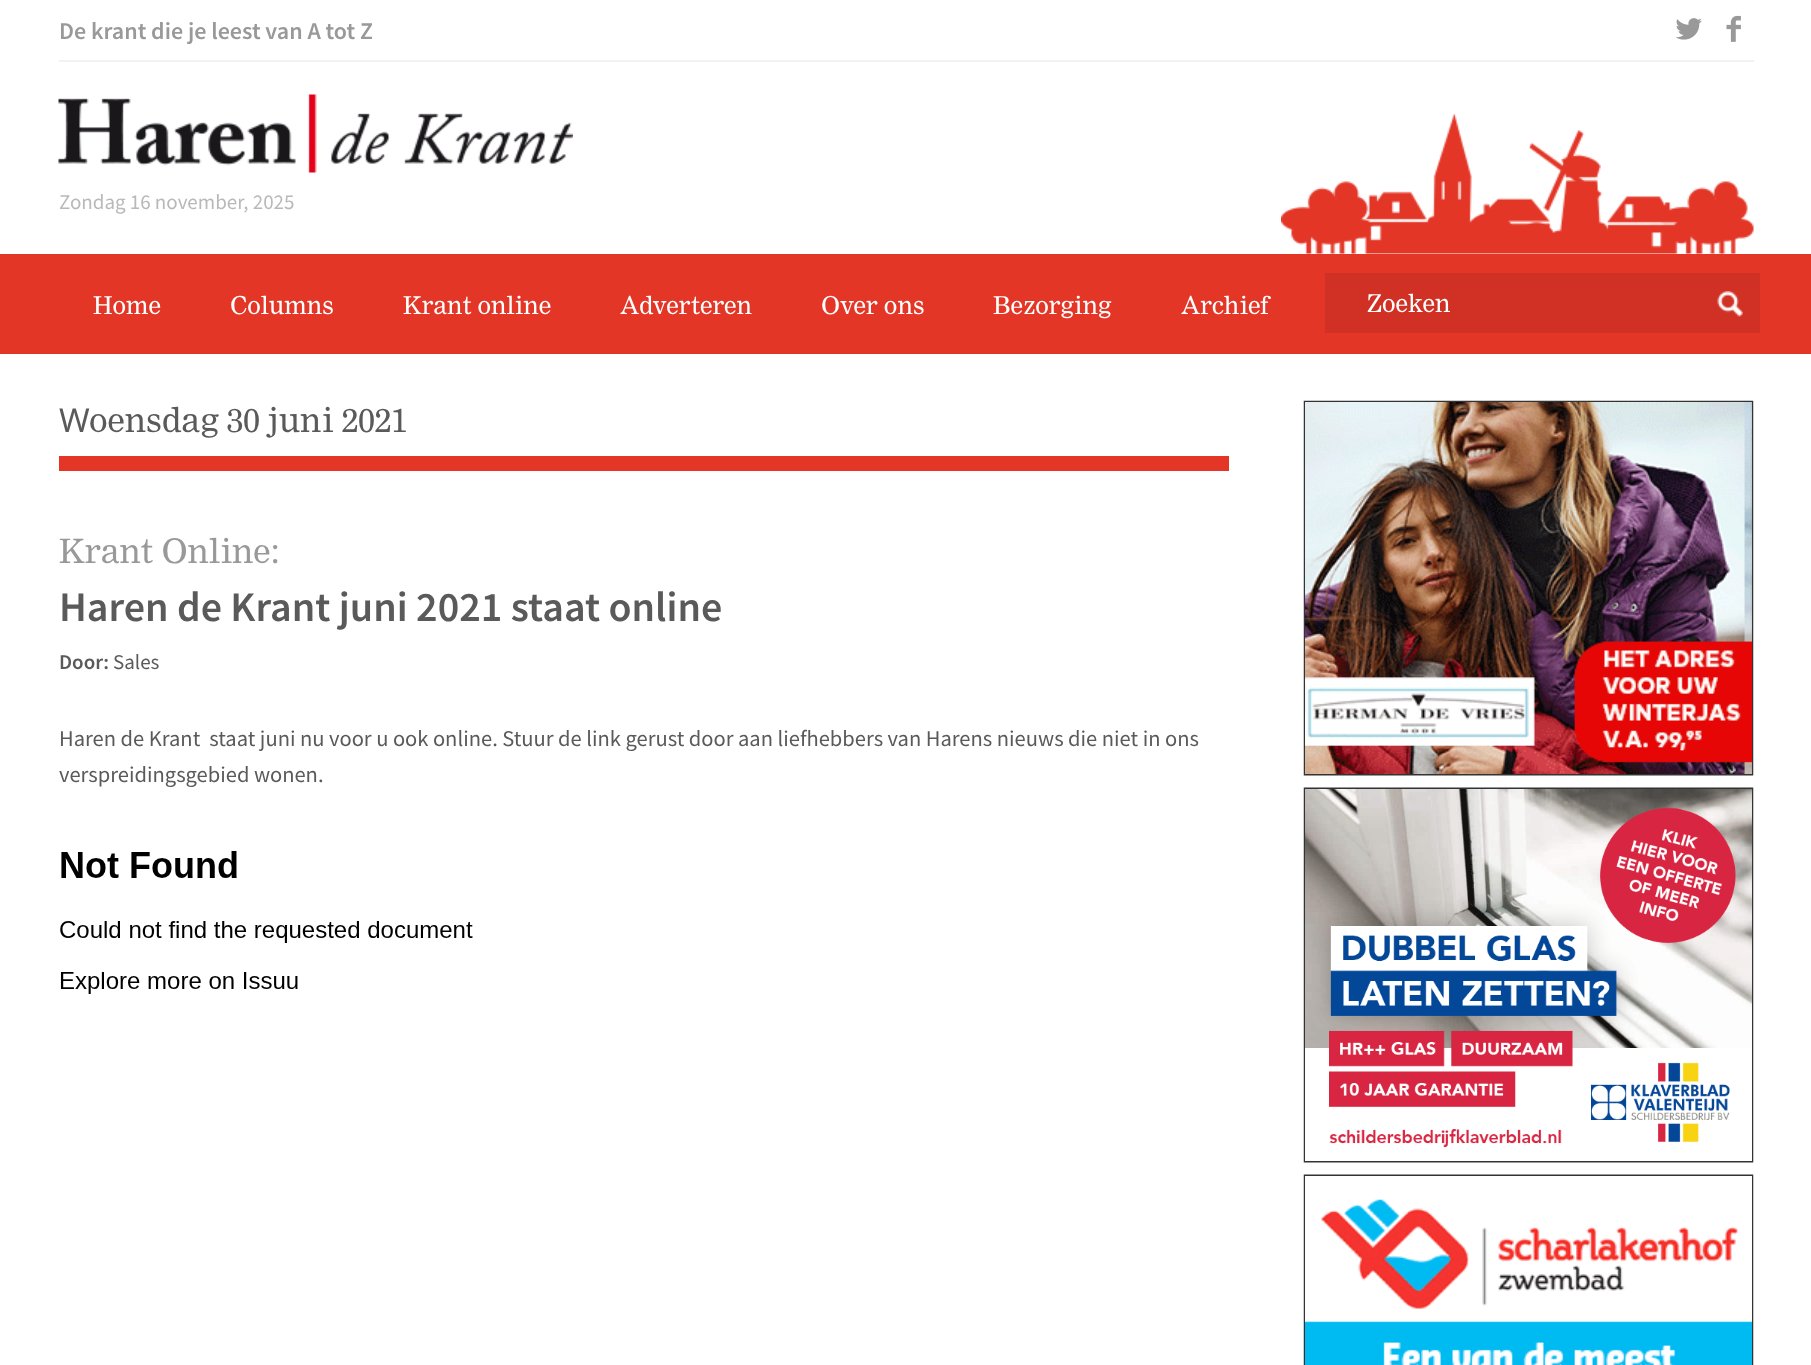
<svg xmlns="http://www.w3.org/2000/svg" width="1811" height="1365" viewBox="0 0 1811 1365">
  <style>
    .t1 { font: 600 24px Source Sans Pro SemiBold; fill: #999; }
    .t2 { font: 21px Source Sans Pro; fill: #b9b9b9; }
    .t3 { font: 24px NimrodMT; fill: #fff; }
    .t4 { font: 33px Noto Sans; fill: #5a5a5a; }
    .t5 { font: 33px NimrodMT; fill: #5a5a5a; }
    .t6 { font: 33px NimrodMT; fill: #999; }
    .t7 { font: 600 42px Source Sans Pro SemiBold; fill: #5a5a5a; }
    .t8 { font: 600 21px Source Sans Pro SemiBold; fill: #5a5a5a; }
    .t9 { font: 21px Source Sans Pro; fill: #5a5a5a; }
    .t10 { font: 22.5px Source Sans Pro; fill: #5a5a5a; }
  </style>
  <rect width="100%" height="100%" fill="#fff"/>
  <rect x="59" y="60" width="1695" height="2" fill="#f2f2f2"/>
  <text x="59" y="39" class="t1">De krant die je leest van A tot Z</text>
  <image x="1675" y="18" width="27" height="22" href="images/1.png"/>
  <image x="1726" y="15" width="15" height="27" href="images/2.png"/>
  <image x="58" y="94" width="515" height="79" href="images/3.png"/>
  <text x="59" y="209" class="t2">Zondag 16 november, 2025</text>
  <image x="1281" y="114" width="473" height="140" href="images/4.png"/>
  <rect x="0" y="254" width="1811" height="100" fill="#e33627"/>
  <text x="93" y="314" class="t3">Home</text>
  <text x="230" y="314" class="t3">Columns</text>
  <text x="403" y="314" class="t3">Krant online</text>
  <text x="620" y="314" class="t3">Adverteren</text>
  <text x="821" y="314" class="t3">Over ons</text>
  <text x="993" y="314" class="t3">Bezorging</text>
  <text x="1181" y="314" class="t3">Archief</text>
  <rect x="1325" y="273" width="435" height="60" fill="#d13124"/>
  <text x="1367" y="312" class="t3">Zoeken</text>
  <image x="1717" y="291" width="26" height="26" href="images/5.png"/>
  <rect x="59" y="456" width="1170" height="15" fill="#e33627"/>
  <text x="59" y="432" class="t4">W</text>
  <text x="89" y="432" class="t5">oensdag 30 juni 2021</text>
  <text x="59" y="563" class="t6">Krant Online:</text>
  <text x="59" y="621" class="t7">Haren de Krant juni 2021 staat online</text>
  <text x="59" y="669" class="t8">Door:</text>
  <text x="113" y="669" class="t9">Sales</text>
  <text x="59" y="746" class="t10" xml:space="preserve">Haren de Krant  staat juni nu voor u ook online. Stuur de link gerust door aan liefhebbers van Harens nieuws die niet in ons</text>
  <text x="59" y="782" class="t10">verspreidingsgebied wonen.</text>
  <image x="60" y="851" width="413" height="143" href="images/6.png"/>
  <image x="1303" y="400" width="451" height="965" href="images/7.png"/>
</svg>
